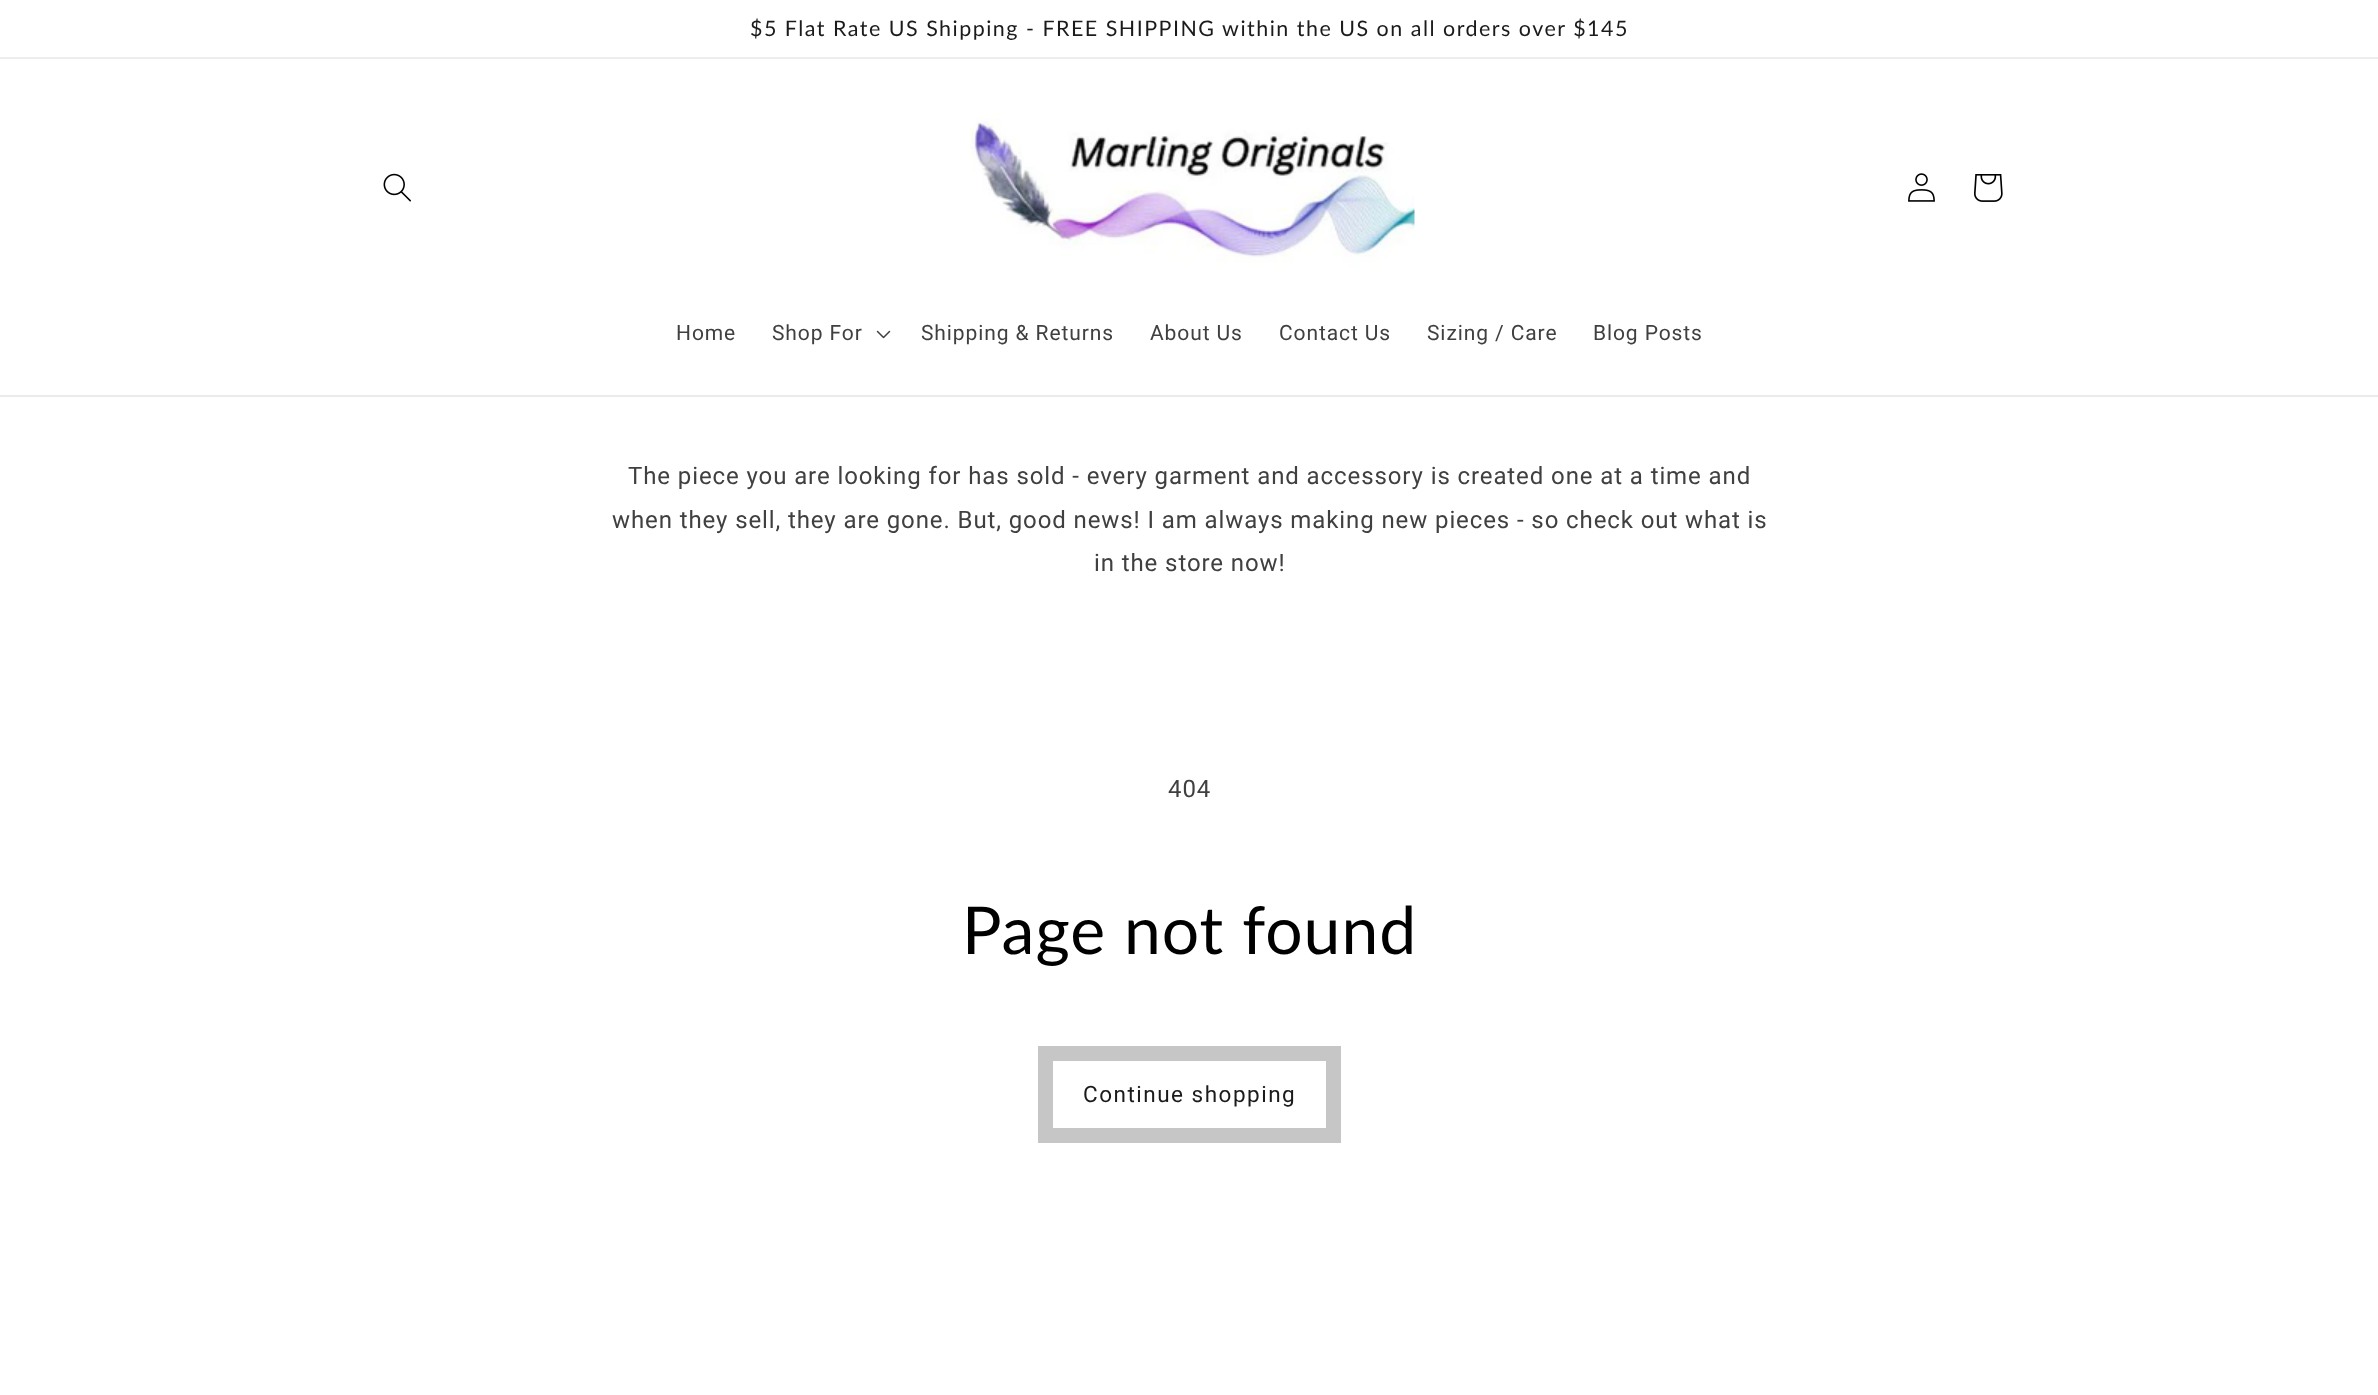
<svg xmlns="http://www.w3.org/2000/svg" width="2378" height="1395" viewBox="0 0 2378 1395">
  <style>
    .t1 { font: 21.45px Lato; letter-spacing: 1.5px; fill: #1c1a1a; }
    .t2 { font: 21px Roboto; letter-spacing: 0.9px; fill: #404040; }
    .t3 { font: 24px Roboto; letter-spacing: 0.9px; fill: #404040; }
    .t4 { font: 66px Lato; letter-spacing: 1px; fill: #000; }
    .t5 { font: 22.5px Roboto; letter-spacing: 1.5px; fill: #1c1a1a; }
  </style>
  <rect width="100%" height="100%" fill="#fff"/>
  <rect x="0" y="57" width="2378" height="2" fill="#ededed"/>
  <text x="750" y="36" class="t1">$5 Flat Rate US Shipping - FREE SHIPPING within the US on all orders over $145</text>
  <rect x="0" y="395" width="2378" height="2" fill="#ebebeb"/>
  <image x="383" y="173" width="28" height="29" href="images/1.png"/>
  <image x="969" y="113" width="446" height="155" href="images/2.png"/>
  <image x="1908" y="173" width="27" height="29" href="images/3.png"/>
  <image x="1974" y="174" width="29" height="28" href="images/4.png"/>
  <text x="676" y="340" class="t2">Home</text>
  <text x="772" y="340" class="t2">Shop For</text>
  <image x="876" y="330" width="15" height="9" href="images/5.png"/>
  <text x="921" y="340" class="t2">Shipping &amp; Returns</text>
  <text x="1150" y="340" class="t2">About Us</text>
  <text x="1279" y="340" class="t2">Contact Us</text>
  <text x="1427" y="340" class="t2">Sizing / Care</text>
  <text x="1593" y="340" class="t2">Blog Posts</text>
  <text x="628" y="484" class="t3">The piece you are looking for has sold - every garment and accessory is created one at a time and</text>
  <text x="612" y="528" class="t3">when they sell, they are gone. But, good news! I am always making new pieces - so check out what is</text>
  <text x="1094" y="571" class="t3">in the store now!</text>
  <text x="1168" y="797" class="t3">404</text>
  <text x="962" y="954" class="t4">Page not found</text>
  <rect x="1045.5" y="1053.5" width="288" height="82" fill="none" stroke="#c6c6c6" stroke-width="15"/>
  <text x="1083" y="1102" class="t5">Continue shopping</text>
</svg>
